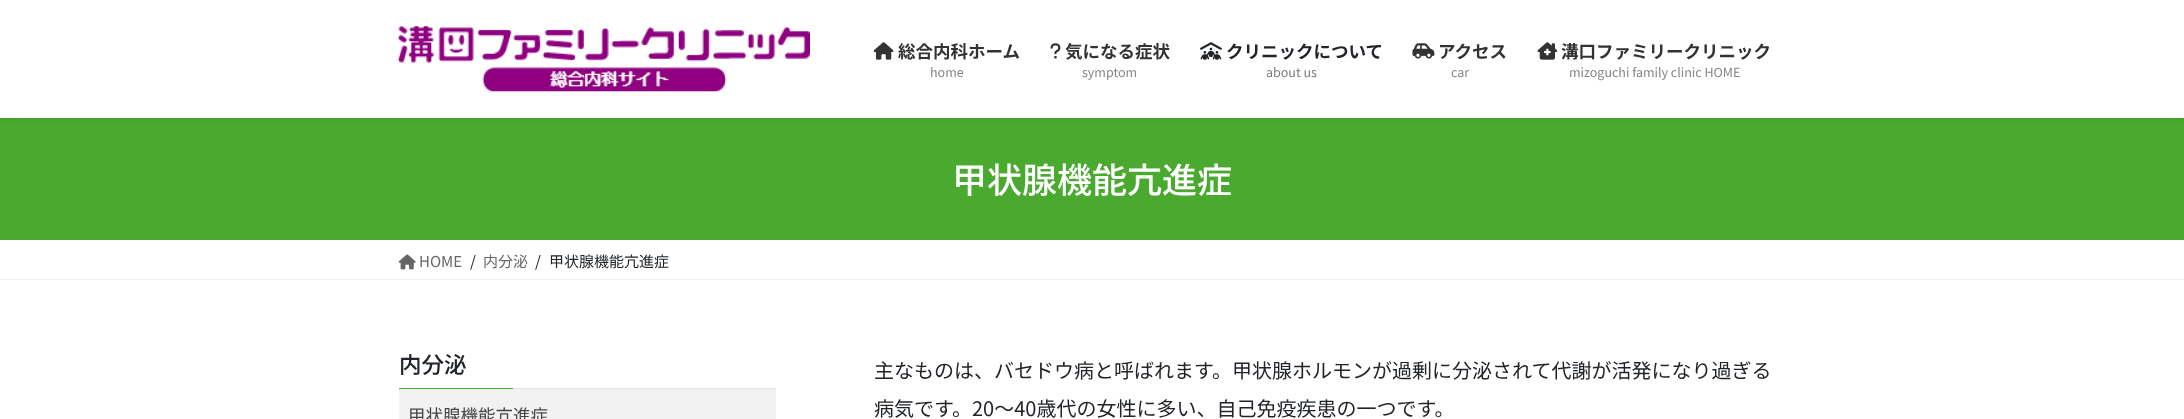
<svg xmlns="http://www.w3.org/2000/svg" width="2184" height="419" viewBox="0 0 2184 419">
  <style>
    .t1 { font: bold 17.5px Noto Sans JP; fill: #333; }
    .t2 { font: 12.5px Noto Sans JP; fill: #858585; }
    .t3 { font: bold 17.5px Noto Sans JP; fill: #212529; }
    .t4 { font: 12.5px Noto Sans JP; fill: #7a7c7f; }
    .t5 { font: 500 35px Noto Sans JP; fill: #fff; }
    .t6 { font: 15px Noto Sans JP; fill: #666; }
    .t7 { font: 15px Noto Sans JP; fill: #212529; }
    .t8 { font: 500 22.5px Noto Sans JP; fill: #212529; }
    .t9 { font: 17.5px Noto Sans JP; fill: #464646; }
    .t10 { font: 20px Noto Sans JP; fill: #212529; }
  </style>
  <rect width="100%" height="100%" fill="#fff"/>
  <rect x="0" y="118" width="2184" height="122" fill="#4aaa2f"/>
  <rect x="0" y="1" width="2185" height="118" fill="#0000001a" filter="blur(2px)"/>
  <rect x="0" y="0" width="2184" height="118" fill="#fff"/>
  <image x="398" y="26" width="412" height="66" href="images/1.png"/>
  <image x="873" y="42" width="21" height="18" href="images/2.png"/>
  <text x="898" y="58" class="t1">総合内科ホーム</text>
  <text x="930" y="77" class="t2">home</text>
  <image x="1050" y="43" width="11" height="16" href="images/3.png"/>
  <text x="1065" y="58" class="t1">気になる症状</text>
  <text x="1082" y="77" class="t2">symptom</text>
  <image x="1200" y="42" width="22" height="18" href="images/4.png"/>
  <text x="1226" y="58" class="t3">クリニックについて</text>
  <text x="1266" y="77" class="t4">about us</text>
  <image x="1412" y="43" width="23" height="16" href="images/5.png"/>
  <text x="1438" y="58" class="t1">アクセス</text>
  <text x="1451" y="77" class="t2">car</text>
  <image x="1537" y="42" width="21" height="18" href="images/6.png"/>
  <text x="1561" y="58" class="t1">溝口ファミリークリニック</text>
  <text x="1569" y="77" class="t2">mizoguchi family clinic HOME</text>
  <text x="952" y="193" class="t5">甲状腺機能亢進症</text>
  <rect x="0" y="279" width="2184" height="1" fill="#f2f2f2"/>
  <image x="398" y="254" width="18" height="16" href="images/7.png"/>
  <text x="419" y="267" class="t6">HOME</text>
  <text x="470" y="267" class="t7">/</text>
  <text x="483" y="267" class="t6">内分泌</text>
  <text x="535" y="267" class="t7">/</text>
  <text x="549" y="267" class="t7">甲状腺機能亢進症</text>
  <rect x="513" y="388" width="263" height="1" fill="#e6e6e6"/>
  <text x="399" y="373" class="t8">内分泌</text>
  <rect x="399" y="388" width="114" height="1" fill="#4aaa2f"/>
  <rect x="399" y="389" width="377" height="30" fill="#f2f2f2"/>
  <text x="408" y="422" class="t9">甲状腺機能亢進症</text>
  <text x="874" y="378" class="t10">主なものは、バセドウ病と呼ばれます。甲状腺ホルモンが過剰に分泌されて代謝が活発になり過ぎる</text>
  <text x="874" y="416" class="t10">病気です。20～40歳代の女性に多い、自己免疫疾患の一つです。</text>
</svg>
